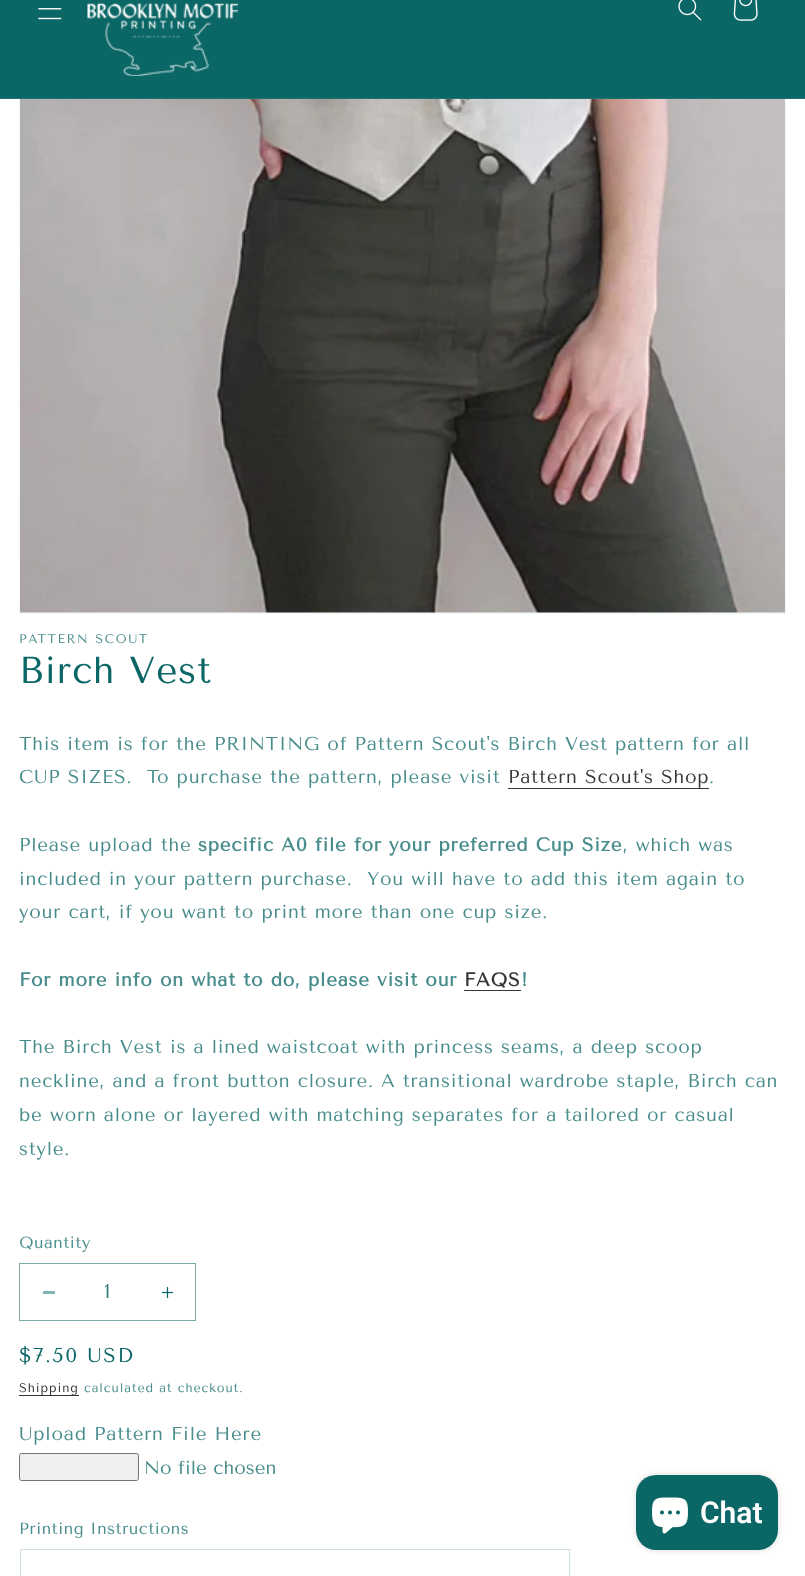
<svg xmlns="http://www.w3.org/2000/svg" width="805" height="1576" viewBox="0 0 805 1576">
  <style>
    .t1 { font: 12.5px Tenor Sans; letter-spacing: 1.6px; fill: #488c8c; }
    .t2 { font: 37.5px Tenor Sans; letter-spacing: 0.75px; fill: #0b6666; }
    .t3 { font: 18.75px Tenor Sans; letter-spacing: 0.75px; fill: #488c8c; }
    .t4 { font: 18.75px Tenor Sans; letter-spacing: 0.75px; fill: #363636; }
    .t5 { font: bold 18.75px Tenor Sans; letter-spacing: 0.75px; fill: #488c8c; }
    .t6 { font: bold 18.75px Tenor Sans; letter-spacing: 0.75px; fill: #363636; }
    .t7 { font: 16.25px Tenor Sans; letter-spacing: 0.5px; fill: #488c8c; }
    .t8 { font: 20px Tenor Sans; fill: #307d7d; }
    .t9 { font: 20px Tenor Sans; letter-spacing: 1.6px; fill: #0b6666; }
    .t10 { font: 12.5px Tenor Sans; letter-spacing: 0.9px; fill: #363636; }
    .t11 { font: 12.5px Tenor Sans; letter-spacing: 0.9px; fill: #488c8c; }
    .t12 { font: 18.75px Tenor Sans; fill: #488c8c; }
    .t13 { font: 600 30px Roboto; fill: #fff; }
  </style>
  <rect width="100%" height="100%" fill="#fff"/>
  <rect x="19.5" y="-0.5" width="766" height="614" fill="none" stroke="#f3f7f7"/>
  <rect x="0" y="0" width="805" height="98" fill="#0b6666"/>
  <rect x="0" y="98" width="805" height="1" fill="#1f7272"/>
  <image x="38" y="8" width="24" height="12" href="images/1.png"/>
  <image x="87" y="2" width="151" height="74" href="images/2.png"/>
  <image x="678" y="0" width="24" height="21" href="images/3.png"/>
  <image x="733" y="0" width="25" height="21" href="images/4.png"/>
  <image x="20" y="99" width="765" height="514" href="images/5.png"/>
  <text x="19" y="643" class="t1">PATTERN SCOUT</text>
  <text x="19" y="683" class="t2">Birch Vest</text>
  <text x="19" y="750" class="t3">This item is for the PRINTING of Pattern Scout's Birch Vest pattern for all</text>
  <text x="19" y="783" class="t3" xml:space="preserve">CUP SIZES.  To purchase the pattern, please visit</text>
  <text x="508" y="783" class="t4">Pattern Scout's Shop</text>
  <rect x="508" y="788" width="201" height="1" fill="#363636"/>
  <text x="709" y="783" class="t3">.</text>
  <text x="19" y="851" class="t3">Please upload the</text>
  <text x="198" y="851" class="t5">specific A0 file for your preferred Cup Size</text>
  <text x="623" y="851" class="t3">, which was</text>
  <text x="19" y="885" class="t3" xml:space="preserve">included in your pattern purchase.  You will have to add this item again to</text>
  <text x="19" y="918" class="t3">your cart, if you want to print more than one cup size.</text>
  <text x="19" y="986" class="t5">For more info on what to do, please visit our</text>
  <text x="464" y="986" class="t6">FAQS</text>
  <rect x="464" y="990" width="57" height="1" fill="#363636"/>
  <text x="521" y="986" class="t5">!</text>
  <text x="19" y="1053" class="t3">The Birch Vest is a lined waistcoat with princess seams, a deep scoop</text>
  <text x="19" y="1087" class="t3">neckline, and a front button closure. A transitional wardrobe staple, Birch can</text>
  <text x="19" y="1121" class="t3">be worn alone or layered with matching separates for a tailored or casual</text>
  <text x="19" y="1155" class="t3">style.</text>
  <text x="19" y="1248" class="t7">Quantity</text>
  <rect x="43" y="1291" width="12" height="3" fill="#85b3b3"/>
  <image x="161" y="1286" width="13" height="13" href="images/6.png"/>
  <rect x="19.5" y="1263.5" width="176" height="57" fill="none" stroke="#79abab"/>
  <text x="104" y="1298" class="t8">1</text>
  <text x="19" y="1362" class="t9">$7.50 USD</text>
  <rect x="19" y="1395" width="60" height="1" fill="#363636"/>
  <text x="19" y="1392" class="t10">Shipping</text>
  <text x="84" y="1392" class="t11">calculated at checkout.</text>
  <text x="19" y="1440" class="t3">Upload Pattern File Here</text>
  <rect x="19.5" y="1453.5" width="119" height="27" rx="2" fill="#efefef" stroke="#767676"/>
  <text x="144" y="1474" class="t12">No file chosen</text>
  <text x="19" y="1534" class="t7">Printing Instructions</text>
  <rect x="20.5" y="1549.5" width="549" height="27" fill="none" stroke="#cee0e0"/>
  <rect x="636" y="1475" width="142" height="75" rx="20" fill="#00000026" filter="blur(3px)"/>
  <rect x="636" y="1475" width="142" height="75" rx="20" fill="#0b6666"/>
  <image x="652" y="1497" width="36" height="37" href="images/7.png"/>
  <text x="700" y="1523" class="t13">Chat</text>
</svg>
